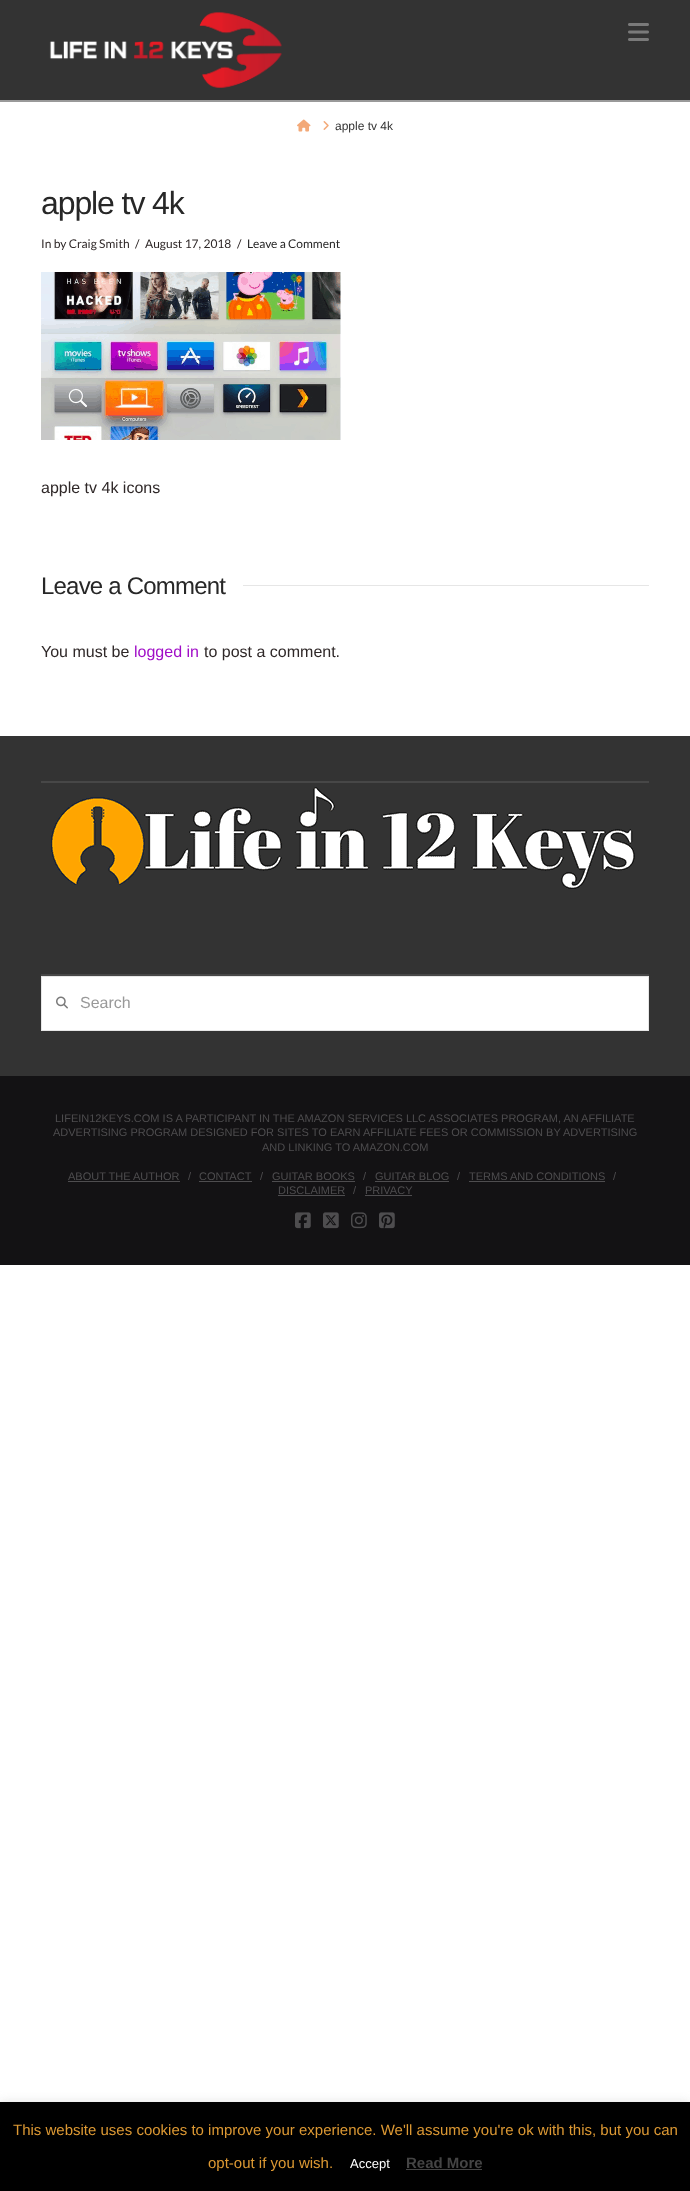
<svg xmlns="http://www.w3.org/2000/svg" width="690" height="2191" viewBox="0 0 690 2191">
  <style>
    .t1 { font: 12px Liberation Sans; fill: #333; }
    .t2 { font: 32px Liberation Sans; letter-spacing: -1.1px; fill: #272727; }
    .t3 { font: 12px Lato; fill: #2f2828; }
    .t4 { font: 12px Lato; fill: #272727; }
    .t5 { font: 16px Liberation Sans; fill: #2f2828; }
    .t6 { font: 24px Liberation Sans; letter-spacing: -0.8px; fill: #272727; }
    .t7 { font: 16px Liberation Sans; fill: #a00dc7; }
    .t8 { font: 16px Liberation Sans; fill: #999; }
    .t9 { font: 11px Liberation Sans; fill: #4e4d4f; }
    .t10 { font: 15px Liberation Sans; fill: #d93; }
    .t11 { font: 13px Liberation Sans; fill: #fff; }
    .t12 { font: bold 15px Liberation Sans; fill: #444; }
  </style>
  <rect width="100%" height="100%" fill="#fff"/>
  <rect x="0" y="0" width="690" height="100" fill="#333"/>
  <rect x="0" y="100" width="690" height="2" fill="#999"/>
  <image x="49" y="12" width="233" height="76" href="images/1.png"/>
  <image x="628" y="23" width="21" height="18" href="images/2.png"/>
  <image x="297" y="119" width="14" height="13" href="images/3.png"/>
  <image x="323" y="121" width="6" height="9" href="images/4.png"/>
  <text x="335" y="130" class="t1">apple tv 4k</text>
  <text x="41" y="214" class="t2">apple tv 4k</text>
  <text x="41" y="248" class="t3">In by Craig Smith</text>
  <text x="135" y="248" class="t3">/</text>
  <text x="145" y="248" class="t3">August 17, 2018</text>
  <text x="237" y="248" class="t3">/</text>
  <text x="247" y="248" class="t4">Leave a Comment</text>
  <image x="41" y="272" width="300" height="168" href="images/5.png"/>
  <text x="41" y="493" class="t5">apple tv 4k icons</text>
  <text x="41" y="594" class="t6">Leave a Comment</text>
  <rect x="243" y="585" width="406" height="1" fill="#e6e6e6"/>
  <text x="41" y="657" class="t5">You must be</text>
  <text x="134" y="657" class="t7">logged in</text>
  <text x="204" y="657" class="t5">to post a comment.</text>
  <rect x="0" y="736" width="690" height="340" fill="#333"/>
  <rect x="41" y="781" width="608" height="2" fill="#474747"/>
  <image x="51" y="787" width="584" height="102" href="images/6.png"/>
  <rect x="41" y="974" width="608" height="2" fill="#474747"/>
  <rect x="41.5" y="976.5" width="607" height="54" fill="#fff" stroke="#e6e6e6"/>
  <image x="56" y="996" width="12" height="13" href="images/7.png"/>
  <text x="80" y="1008" class="t8">Search</text>
  <rect x="0" y="1076" width="690" height="189" fill="#131214"/>
  <text x="55" y="1122" class="t9">LIFEIN12KEYS.COM IS A PARTICIPANT IN THE AMAZON SERVICES LLC ASSOCIATES PROGRAM, AN AFFILIATE</text>
  <text x="53" y="1136" class="t9">ADVERTISING PROGRAM DESIGNED FOR SITES TO EARN AFFILIATE FEES OR COMMISSION BY ADVERTISING</text>
  <text x="262" y="1151" class="t9">AND LINKING TO AMAZON.COM</text>
  <text x="68" y="1180" class="t9">ABOUT THE AUTHOR</text>
  <rect x="68" y="1181" width="112" height="1" fill="#4e4d4f"/>
  <text x="188" y="1180" class="t9">/</text>
  <text x="199" y="1180" class="t9">CONTACT</text>
  <rect x="199" y="1181" width="53" height="1" fill="#4e4d4f"/>
  <text x="260" y="1180" class="t9">/</text>
  <text x="272" y="1180" class="t9">GUITAR BOOKS</text>
  <rect x="272" y="1181" width="83" height="1" fill="#4e4d4f"/>
  <text x="363" y="1180" class="t9">/</text>
  <text x="375" y="1180" class="t9">GUITAR BLOG</text>
  <rect x="375" y="1181" width="74" height="1" fill="#4e4d4f"/>
  <text x="457" y="1180" class="t9">/</text>
  <text x="469" y="1180" class="t9">TERMS AND CONDITIONS</text>
  <rect x="469" y="1181" width="136" height="1" fill="#4e4d4f"/>
  <text x="613" y="1180" class="t9">/</text>
  <text x="278" y="1194" class="t9">DISCLAIMER</text>
  <rect x="278" y="1195" width="67" height="1" fill="#4e4d4f"/>
  <text x="353" y="1194" class="t9">/</text>
  <text x="365" y="1194" class="t9">PRIVACY</text>
  <rect x="365" y="1195" width="47" height="1" fill="#4e4d4f"/>
  <image x="295" y="1212" width="16" height="17" href="images/8.png"/>
  <image x="323" y="1212" width="16" height="17" href="images/9.png"/>
  <image x="351" y="1212" width="16" height="17" href="images/10.png"/>
  <image x="379" y="1212" width="16" height="17" href="images/11.png"/>
  <rect x="0" y="2101" width="690" height="89" fill="#acabab4d" filter="blur(5px)"/>
  <rect x="0" y="2102" width="690" height="89" fill="#000"/>
  <text x="13" y="2135" class="t10">This website uses cookies to improve your experience. We'll assume you're ok with this, but you can</text>
  <text x="208" y="2168" class="t10">opt-out if you wish.</text>
  <text x="350" y="2168" class="t11">Accept</text>
  <text x="406" y="2168" class="t12">Read More</text>
  <rect x="406" y="2169" width="76" height="1" fill="#444"/>
</svg>
